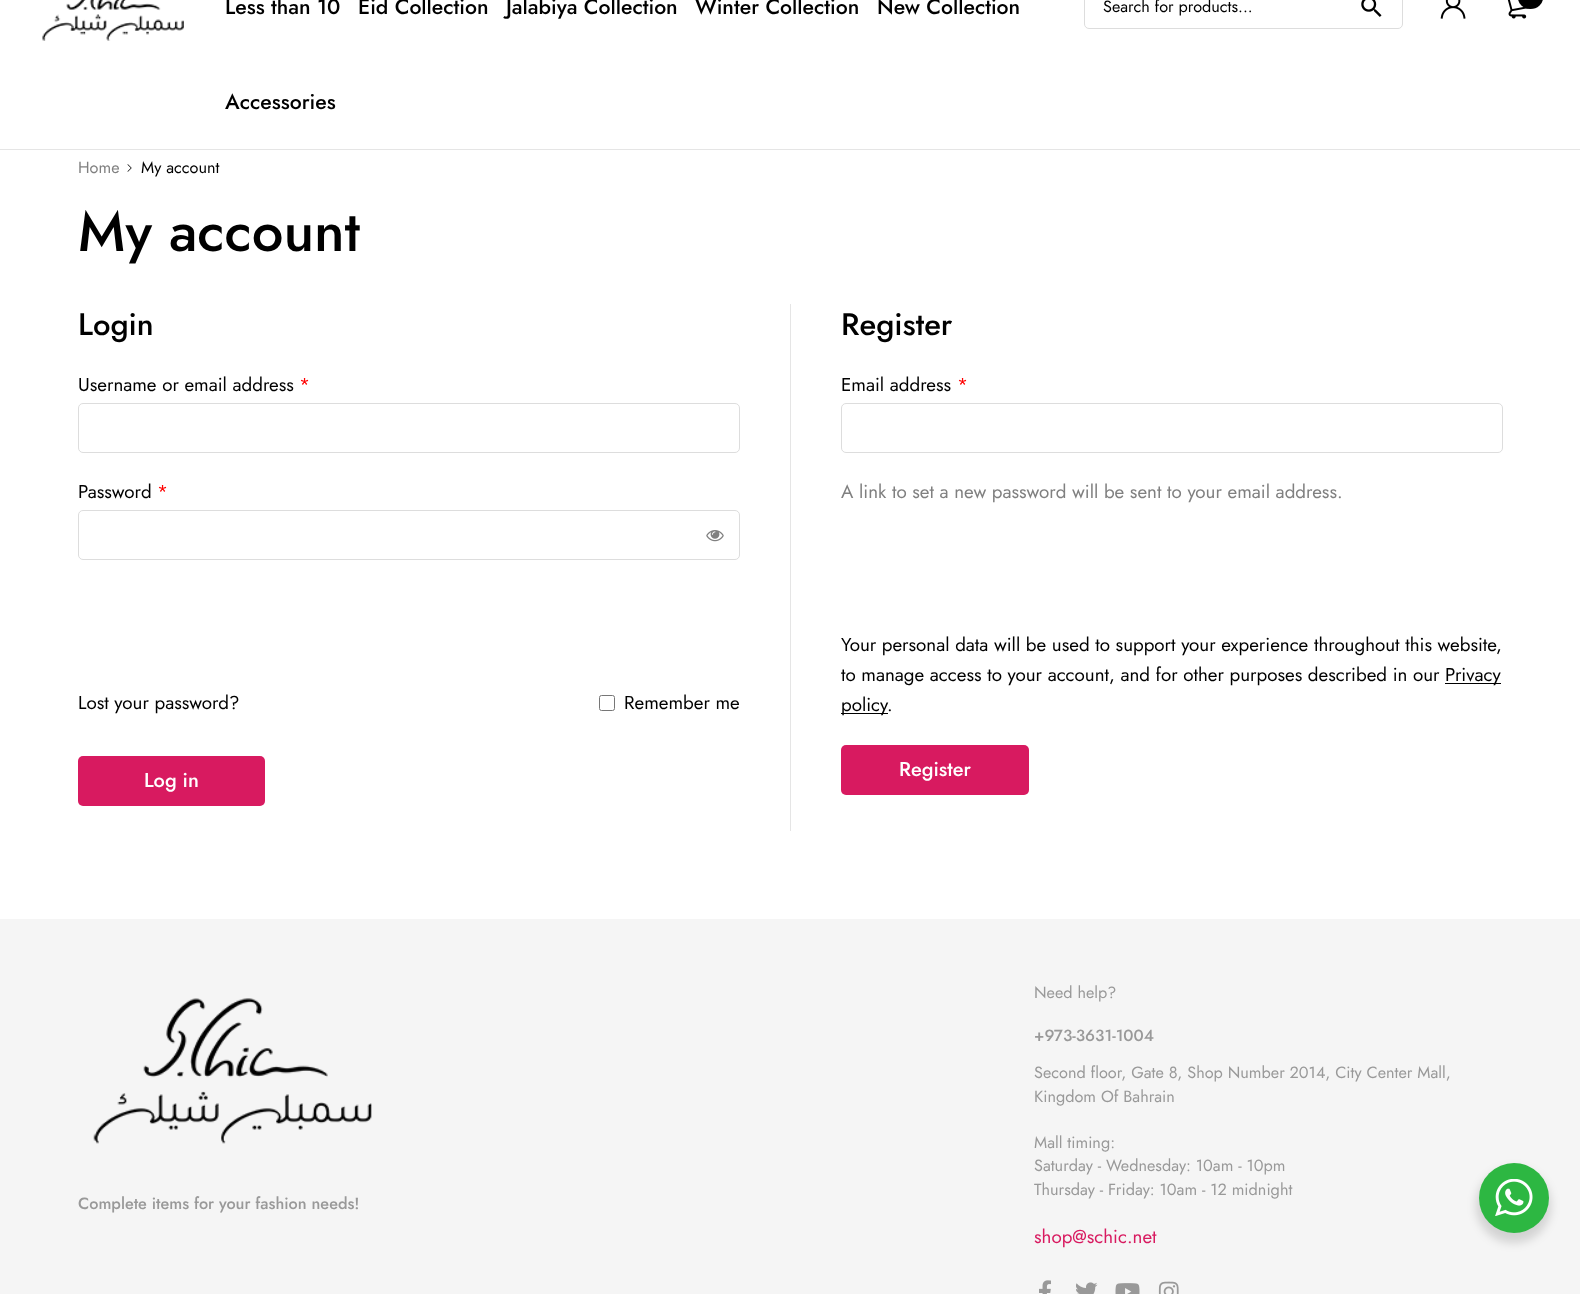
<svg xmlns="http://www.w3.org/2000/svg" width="1580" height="1294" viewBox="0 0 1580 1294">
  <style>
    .t1 { font: 500 21.25px Jost; fill: #000; }
    .t2 { font: 16.25px Jost; fill: #000; }
    .t3 { font: 16.25px Jost; fill: #808080; }
    .t4 { font: 500 56.25px Jost; fill: #000; }
    .t5 { font: 500 31px Jost; fill: #000; }
    .t6 { font: 18.75px Jost; fill: #000; }
    .t7 { font: 18.75px Jost; fill: #f00; }
    .t8 { font: 500 20px Jost; fill: #fff; }
    .t9 { font: 18.75px Jost; fill: #808080; }
    .t10 { font: 500 16.25px Jost; fill: #999; }
    .t11 { font: 16.25px Jost; fill: #999; }
    .t12 { font: 18.75px Jost; fill: #d81a60; }
  </style>
  <rect width="100%" height="100%" fill="#fff"/>
  <rect x="0" y="149" width="1580" height="1" fill="#e5e5e5"/>
  <image x="42" y="0" width="142" height="41" href="images/1.png"/>
  <text x="225" y="14" class="t1">Less than 10</text>
  <text x="358" y="14" class="t1">Eid Collection</text>
  <text x="506" y="14" class="t1">Jalabiya Collection</text>
  <text x="695" y="14" class="t1">Winter Collection</text>
  <text x="877" y="14" class="t1">New Collection</text>
  <text x="225" y="109" class="t1">Accessories</text>
  <rect x="1084.5" y="-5.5" width="318" height="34" rx="4.5" fill="none" stroke="#ddd"/>
  <text x="1103" y="12" class="t2">Search for products...</text>
  <image x="1361" y="0" width="21" height="17" href="images/2.png"/>
  <image x="1440" y="0" width="26" height="19" href="images/3.png"/>
  <image x="1507" y="0" width="22" height="19" href="images/4.png"/>
  <rect x="1518" y="-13" width="25" height="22" rx="12.5" fill="#000"/>
  <text x="78" y="173" class="t3">Home</text>
  <image x="127" y="164" width="5" height="8" href="images/5.png"/>
  <text x="141" y="173" class="t2">My account</text>
  <text x="78" y="251" class="t4">My account</text>
  <text x="78" y="335" class="t5">Login</text>
  <text x="78" y="391" class="t6">Username or email address</text>
  <text x="299" y="391" class="t7">*</text>
  <rect x="78.5" y="403.5" width="661" height="49" rx="4.5" fill="none" stroke="#ddd"/>
  <text x="78" y="498" class="t6">Password</text>
  <text x="157" y="498" class="t7">*</text>
  <rect x="78.5" y="510.5" width="661" height="49" rx="4.5" fill="none" stroke="#ddd"/>
  <image x="706" y="530" width="18" height="12" href="images/6.png"/>
  <text x="78" y="709" class="t6">Lost your password?</text>
  <rect x="599.5" y="695.5" width="15" height="15" rx="2" fill="none" stroke="#767676"/>
  <text x="624" y="709" class="t6">Remember me</text>
  <rect x="78" y="756" width="187" height="50" rx="5" fill="#d81a60"/>
  <text x="144" y="787" class="t8">Log in</text>
  <rect x="790" y="304" width="1" height="527" fill="#e5e5e5"/>
  <text x="841" y="335" class="t5">Register</text>
  <text x="841" y="391" class="t6">Email address</text>
  <text x="957" y="391" class="t7">*</text>
  <rect x="841.5" y="403.5" width="661" height="49" rx="4.5" fill="none" stroke="#ddd"/>
  <text x="841" y="498" class="t9">A link to set a new password will be sent to your email address.</text>
  <text x="841" y="651" class="t6">Your personal data will be used to support your experience throughout this website,</text>
  <text x="841" y="681" class="t6">to manage access to your account, and for other purposes described in our</text>
  <rect x="1445" y="683" width="56" height="1" fill="#000"/>
  <text x="1445" y="681" class="t6">Privacy</text>
  <rect x="841" y="713" width="47" height="1" fill="#000"/>
  <text x="841" y="711" class="t6">policy</text>
  <text x="887" y="711" class="t6">.</text>
  <rect x="841" y="745" width="188" height="50" rx="5" fill="#d81a60"/>
  <text x="899" y="776" class="t8">Register</text>
  <rect x="0" y="919" width="1580" height="375" fill="#f5f5f5"/>
  <image x="93" y="998" width="279" height="146" href="images/7.png"/>
  <text x="78" y="1209" class="t10">Complete items for your fashion needs!</text>
  <text x="1034" y="998" class="t11">Need help?</text>
  <text x="1034" y="1041" class="t10">+973-3631-1004</text>
  <text x="1034" y="1078" class="t11">Second floor, Gate 8, Shop Number 2014, City Center Mall,</text>
  <text x="1034" y="1102" class="t11">Kingdom Of Bahrain</text>
  <text x="1034" y="1148" class="t11">Mall timing:</text>
  <text x="1034" y="1171" class="t11">Saturday - Wednesday: 10am - 10pm</text>
  <text x="1034" y="1195" class="t11">Thursday - Friday: 10am - 12 midnight</text>
  <text x="1034" y="1243" class="t12">shop@schic.net</text>
  <image x="1039" y="1280" width="12" height="14" href="images/8.png"/>
  <image x="1076" y="1282" width="22" height="12" href="images/9.png"/>
  <image x="1115" y="1283" width="25" height="11" href="images/10.png"/>
  <image x="1158" y="1281" width="21" height="13" href="images/11.png"/>
  <rect x="1476" y="1168" width="75" height="75" rx="37.5" fill="#00000024" filter="blur(5px)"/>
  <circle cx="1514" cy="1198" r="35" fill="#2db742"/>
  <image x="1495" y="1179" width="38" height="37" href="images/12.png"/>
</svg>
